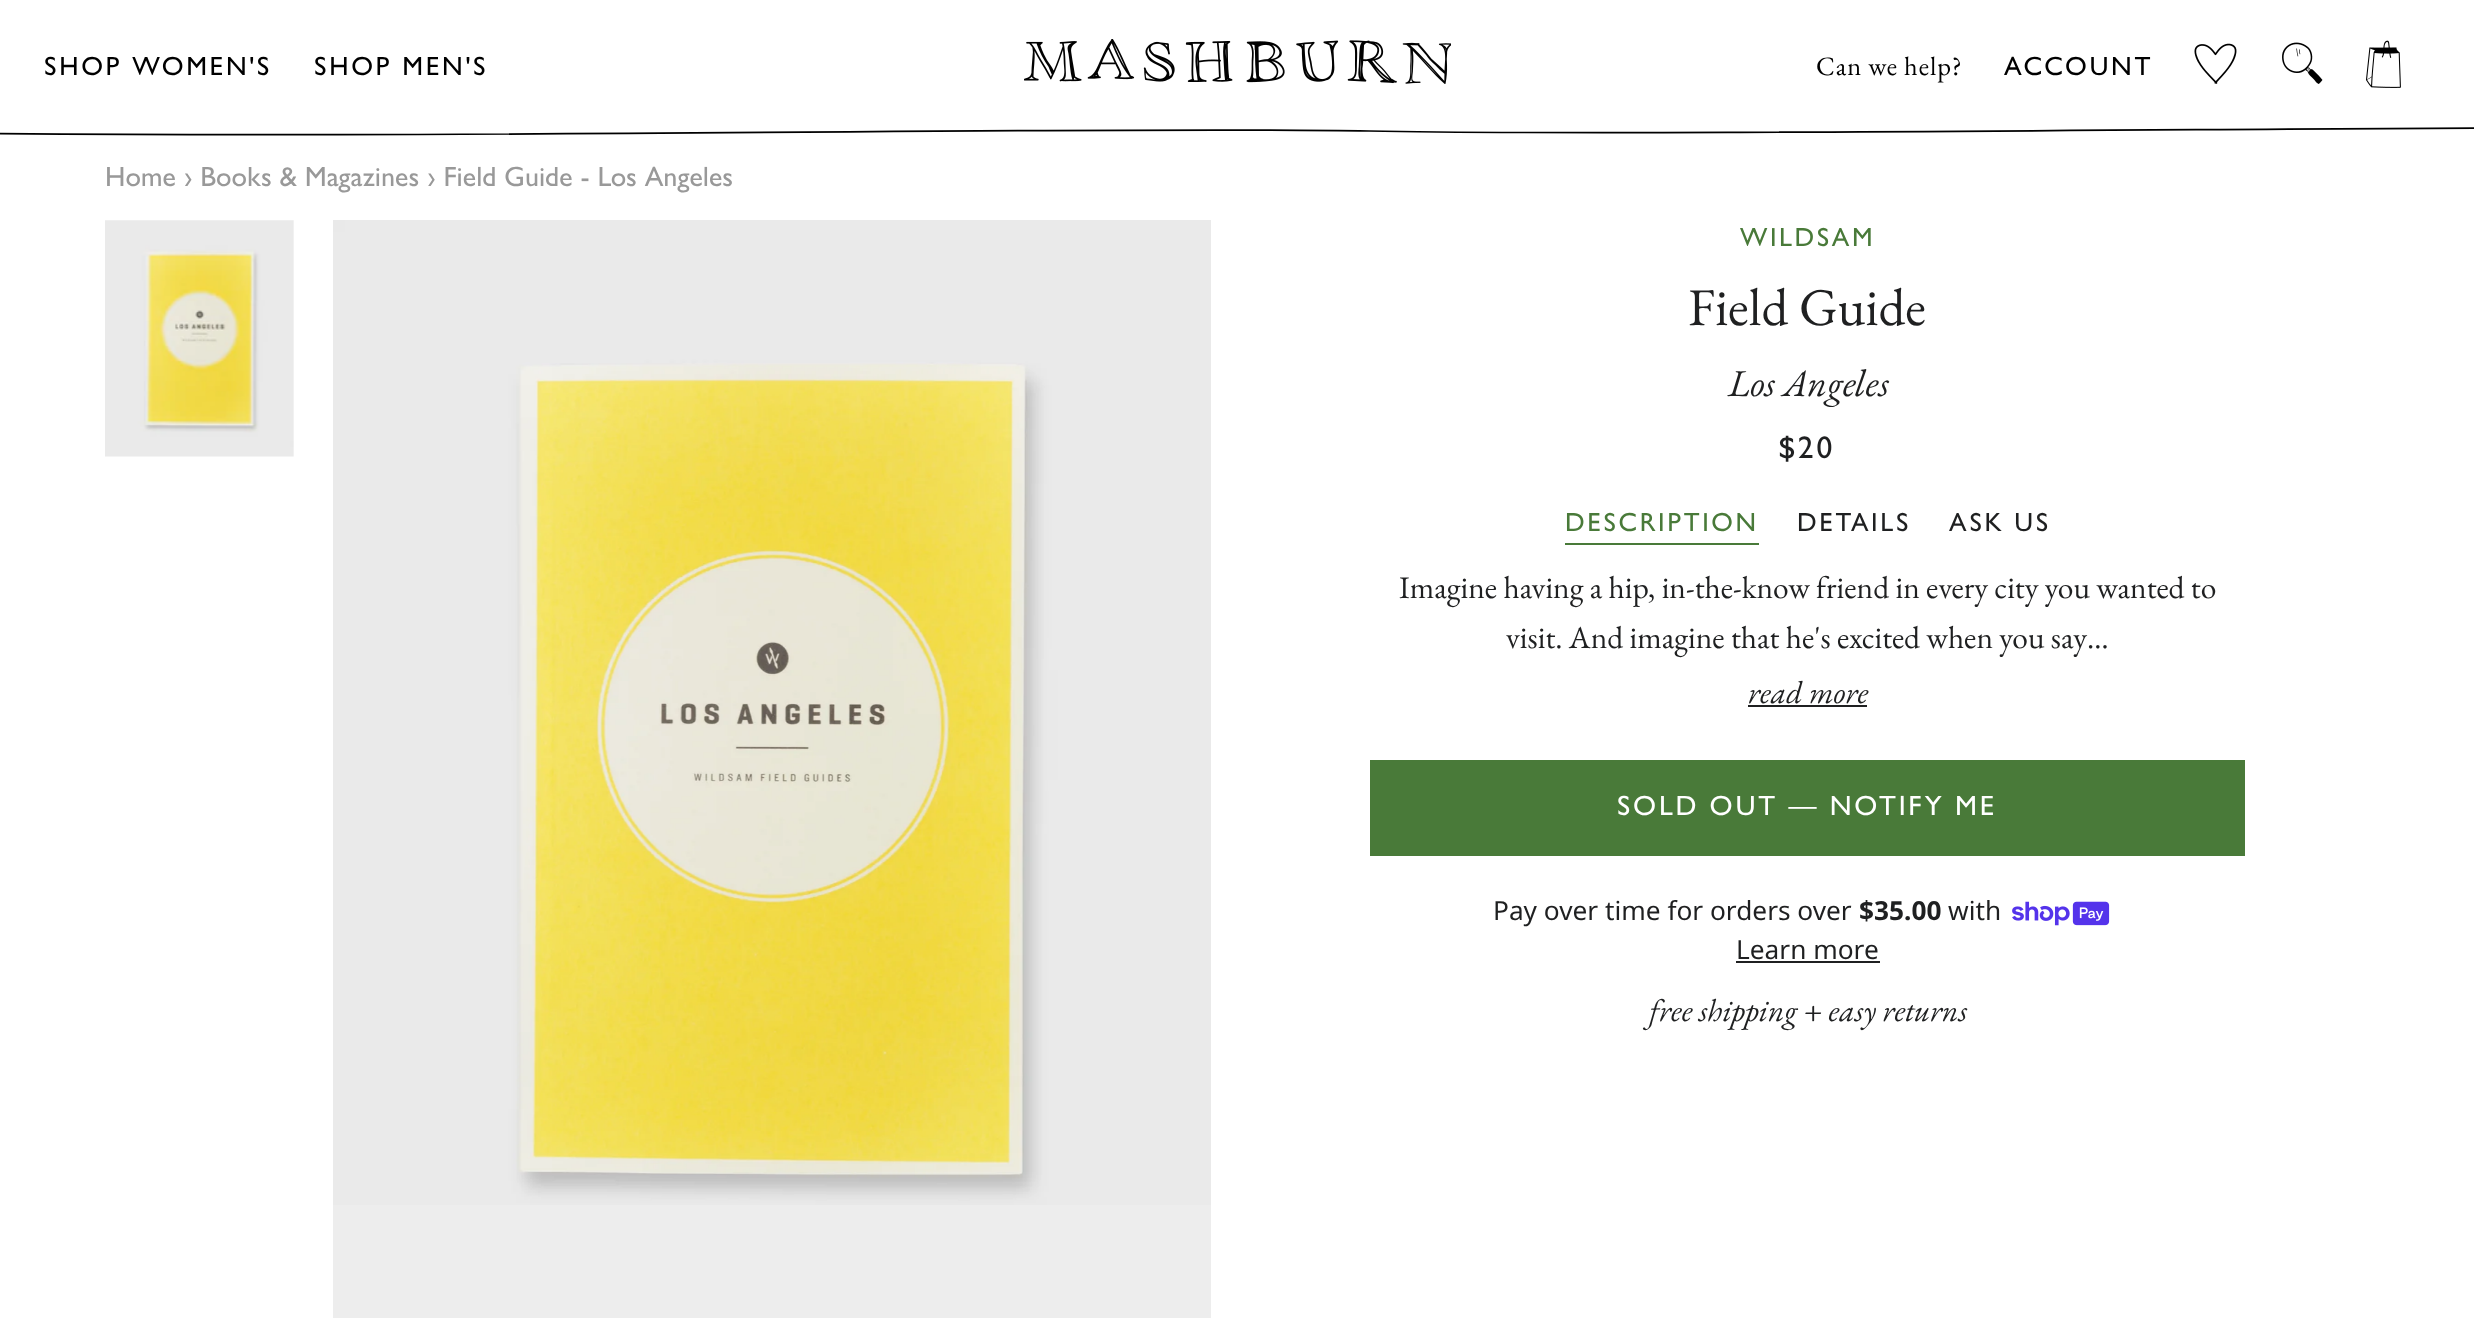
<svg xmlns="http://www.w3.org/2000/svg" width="2474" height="1343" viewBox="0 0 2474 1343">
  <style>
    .t1 { font: 500 26.5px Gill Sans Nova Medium; letter-spacing: 2.6px; fill: #000; }
    .t2 { font: 26.5px EB Garamond; letter-spacing: 0.9px; fill: #000; }
    .t3 { font: 500 28px Gill Sans Nova Medium; fill: #999; }
    .t4 { font: 500 26.25px Gill Sans Nova Medium; letter-spacing: 2.6px; fill: #497a39; }
    .t5 { font: 53px EB Garamond; fill: #1f2021; }
    .t6 { font: italic 38px EB Garamond; fill: #1f2021; }
    .t7 { font: 500 31.5px Gill Sans Nova Medium; letter-spacing: 3px; fill: #1f2021; }
    .t8 { font: 500 26.25px Gill Sans Nova Medium; letter-spacing: 2.6px; fill: #1f2021; }
    .t9 { font: 31.5px EB Garamond; fill: #1f2021; }
    .t10 { font: italic 31.5px EB Garamond; fill: #1f2021; }
    .t11 { font: 500 28px Gill Sans Nova Medium; letter-spacing: 2.75px; fill: #fff; }
    .t12 { font: 26.25px Noto Sans; fill: #1f2021; }
    .t13 { font: bold 26.25px Noto Sans; fill: #1f2021; }
  </style>
  <rect width="100%" height="100%" fill="#fff"/>
  <text x="44" y="75" class="t1">SHOP WOMEN'S</text>
  <text x="314" y="75" class="t1">SHOP MEN'S</text>
  <image x="1024" y="39" width="427" height="45" href="images/1.png"/>
  <text x="1816" y="75" class="t2">Can we help?</text>
  <text x="2004" y="75" class="t1">ACCOUNT</text>
  <image x="2194" y="43" width="43" height="41" href="images/2.png"/>
  <image x="2282" y="42" width="41" height="42" href="images/3.png"/>
  <image x="2366" y="40" width="35" height="48" href="images/4.png"/>
  <path d="M-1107.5 135.5L-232.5 131C429.5 141.5 1077.5 125.5 1369 131C1660.5 137 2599 124 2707 128.5L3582 135.5" fill="none" stroke="#000" stroke-width="1.7"/>
  <text x="105" y="186" class="t3">Home › Books &amp; Magazines › Field Guide - Los Angeles</text>
  <image x="105" y="220" width="189" height="237" href="images/5.png"/>
  <rect x="333" y="1205" width="878" height="113" fill="#ededed"/>
  <image x="333" y="220" width="878" height="985" href="images/6.png"/>
  <text x="1740" y="246" class="t4">WILDSAM</text>
  <text x="1688" y="325" class="t5">Field Guide</text>
  <text x="1728" y="396" class="t6">Los Angeles</text>
  <text x="1779" y="458" class="t7">$20</text>
  <text x="1565" y="531" class="t4">DESCRIPTION</text>
  <rect x="1565" y="543" width="194" height="2" fill="#497a39"/>
  <text x="1797" y="531" class="t8">DETAILS</text>
  <text x="1949" y="531" class="t8">ASK US</text>
  <text x="1399" y="598" class="t9">Imagine having a hip, in-the-know friend in every city you wanted to</text>
  <text x="1506" y="648" class="t9">visit. And imagine that he's excited when you say…</text>
  <text x="1748" y="703" class="t10">read more</text>
  <rect x="1748" y="705" width="119" height="2" fill="#1f2021"/>
  <rect x="1370" y="760" width="875" height="96" fill="#497a39"/>
  <text x="1617" y="815" class="t11">SOLD OUT — NOTIFY ME</text>
  <text x="1493" y="920" class="t12">Pay over time for orders over</text>
  <text x="1859" y="920" class="t13">$35.00</text>
  <text x="1948" y="920" class="t12">with</text>
  <image x="2012" y="901" width="98" height="25" href="images/7.png"/>
  <text x="1736" y="959" class="t12">Learn more</text>
  <rect x="1736" y="961" width="144" height="2" fill="#1f2021"/>
  <text x="1649" y="1021" class="t10">free shipping + easy returns</text>
</svg>
